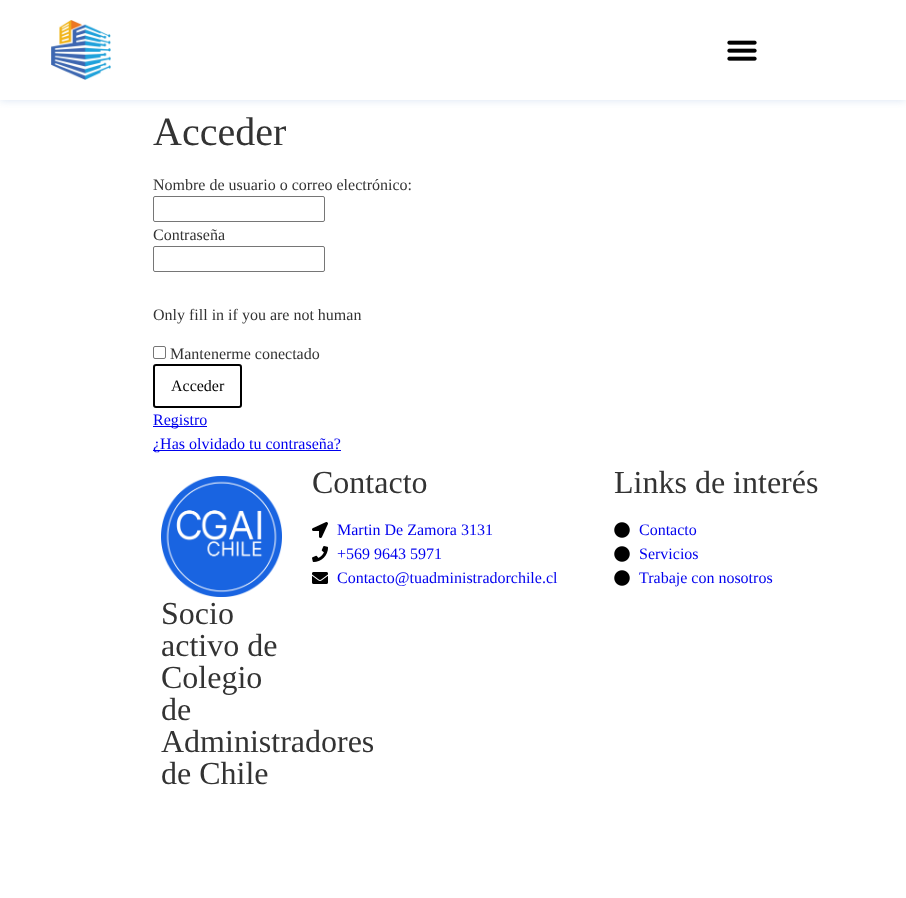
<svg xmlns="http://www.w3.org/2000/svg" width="906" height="898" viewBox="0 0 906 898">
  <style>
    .t1 { font: 40px Liberation Serif; fill: #333; }
    .t2 { font: 16px Liberation Serif; fill: #333; }
    .t3 { font: 16px Liberation Serif; fill: #000; }
    .t4 { font: 16px Liberation Serif; fill: #00e; }
    .t5 { font: 32px Liberation Serif; fill: #333; }
  </style>
  <defs>
    <clipPath id="clip1"><rect x="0" y="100" width="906" height="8"/></clipPath>
  </defs>
  <rect width="100%" height="100%" fill="#fff"/>
  <g clip-path="url(#clip1)">
    <rect x="0" y="0" width="906" height="100" fill="#d7e3f2" filter="blur(4px)"/>
  </g>
  <image x="51" y="20" width="60" height="60" href="images/1.png"/>
  <image x="727" y="40" width="30" height="21" href="images/2.png"/>
  <text x="153" y="145" class="t1">Acceder</text>
  <text x="153" y="190" class="t2">Nombre de usuario o correo electrónico:</text>
  <rect x="153.5" y="196.5" width="171" height="25" rx="1.5" fill="none" stroke="#767676"/>
  <text x="153" y="240" class="t2">Contraseña</text>
  <rect x="153.5" y="246.5" width="171" height="25" rx="1.5" fill="none" stroke="#767676"/>
  <text x="153" y="320" class="t2">Only fill in if you are not human</text>
  <rect x="153.5" y="346.5" width="12" height="12" rx="1.5" fill="none" stroke="#767676"/>
  <text x="170" y="359" class="t2">Mantenerme conectado</text>
  <rect x="154" y="365" width="87" height="42" rx="2" fill="none" stroke="#000" stroke-width="2"/>
  <text x="171" y="391" class="t3">Acceder</text>
  <rect x="153" y="426" width="54" height="1" fill="#00e"/>
  <text x="153" y="425" class="t4">Registro</text>
  <rect x="153" y="450" width="188" height="1" fill="#00e"/>
  <text x="153" y="449" class="t4">¿Has olvidado tu contraseña?</text>
  <text x="312" y="493" class="t5">Contacto</text>
  <image x="312" y="522" width="16" height="16" href="images/3.png"/>
  <text x="337" y="535" class="t4">Martin De Zamora 3131</text>
  <image x="312" y="546" width="16" height="16" href="images/4.png"/>
  <text x="337" y="559" class="t4">+569 9643 5971</text>
  <image x="312" y="572" width="16" height="12" href="images/5.png"/>
  <text x="337" y="583" class="t4">Contacto@tuadministradorchile.cl</text>
  <text x="614" y="493" class="t5">Links de interés</text>
  <image x="614" y="522" width="16" height="16" href="images/6.png"/>
  <text x="639" y="535" class="t4">Contacto</text>
  <image x="614" y="546" width="16" height="16" href="images/6.png"/>
  <text x="639" y="559" class="t4">Servicios</text>
  <image x="614" y="570" width="16" height="16" href="images/6.png"/>
  <text x="639" y="583" class="t4">Trabaje con nosotros</text>
  <image x="161" y="476" width="121" height="121" href="images/7.png"/>
  <text x="161" y="624" class="t5">Socio</text>
  <text x="161" y="656" class="t5">activo de</text>
  <text x="161" y="688" class="t5">Colegio</text>
  <text x="161" y="720" class="t5">de</text>
  <text x="161" y="752" class="t5">Administradores</text>
  <text x="161" y="784" class="t5">de Chile</text>
</svg>
